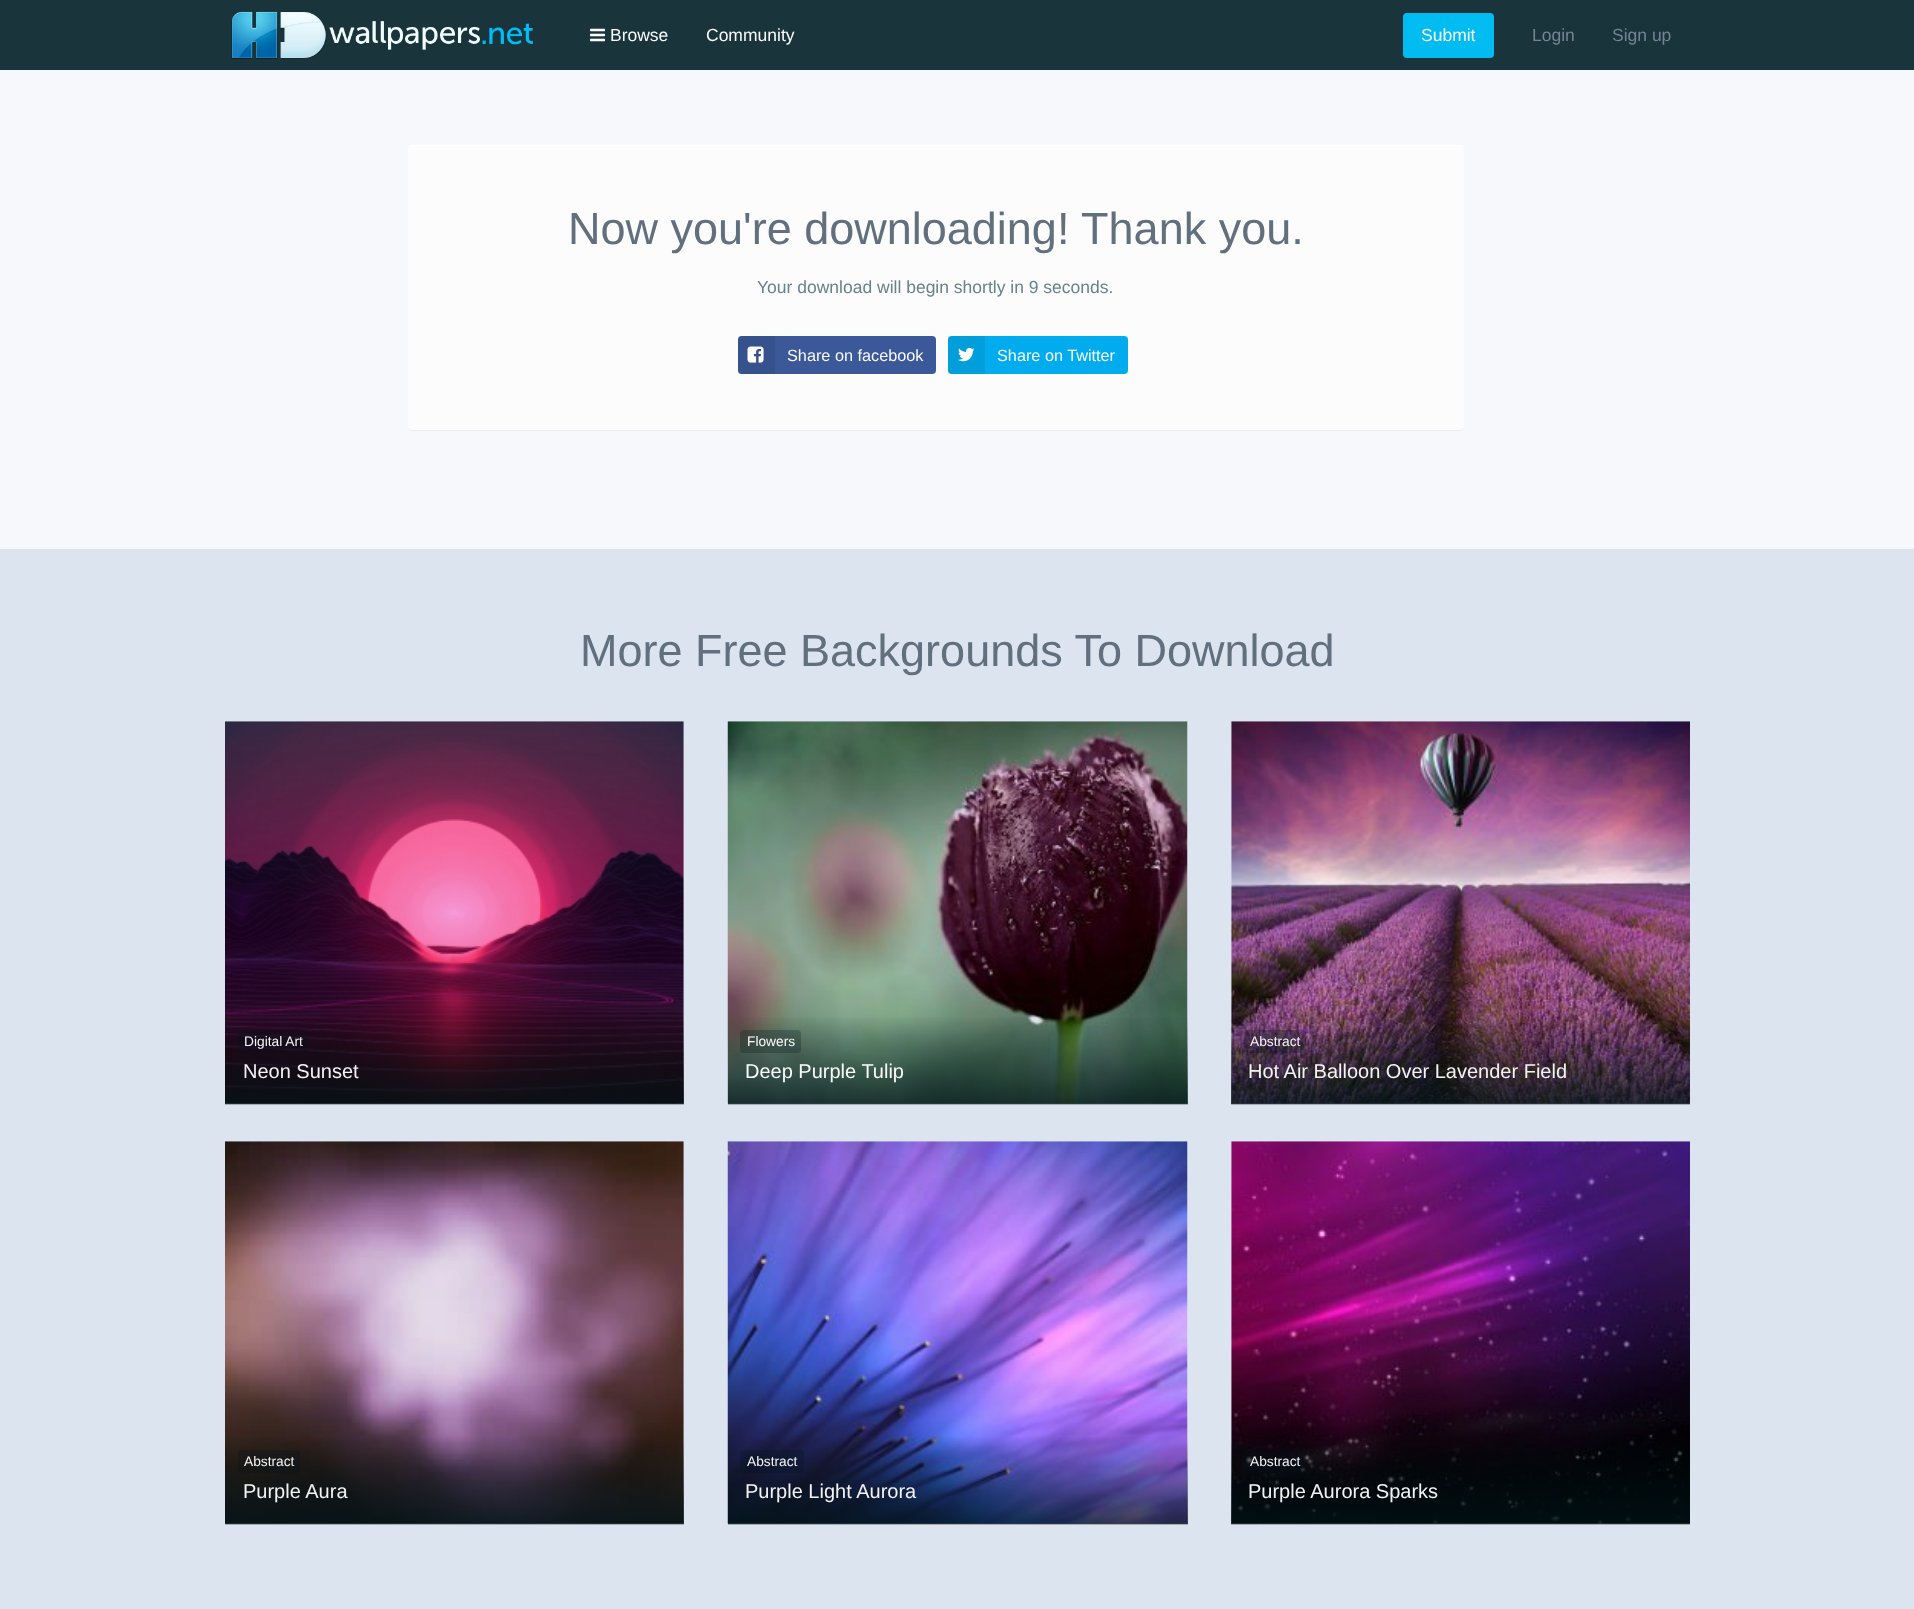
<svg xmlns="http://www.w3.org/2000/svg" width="1914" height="1609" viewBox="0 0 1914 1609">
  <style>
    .t1 { font: 17.5px Liberation Sans; fill: #fafbfb; }
    .t2 { font: 17.5px Liberation Sans; fill: #748494; }
    .t3 { font: 45px Liberation Sans; fill: #626f7d; }
    .t4 { font: 17.5px Liberation Sans; fill: #66828a; }
    .t5 { font: 16.25px Liberation Sans; fill: #fafbfb; }
    .t6 { font: 13.75px Liberation Sans; fill: #f3f3f4; }
    .t7 { font: 20px Liberation Sans; fill: #f3f3f4; }
    .t8 { font: 13.75px Liberation Sans; fill: #fafbfb; }
    .t9 { font: 20px Liberation Sans; fill: #fafbfb; }
  </style>
  <defs>
    <linearGradient id="g1" gradientUnits="userSpaceOnUse" x1="454" y1="1104" x2="454" y2="1010"><stop offset="0" stop-color="#001419" stop-opacity="0.75"/><stop offset="0.95" stop-color="#001419" stop-opacity="0"/></linearGradient>
    <linearGradient id="g2" gradientUnits="userSpaceOnUse" x1="958" y1="1104" x2="958" y2="1010"><stop offset="0" stop-color="#001419" stop-opacity="0.75"/><stop offset="0.95" stop-color="#001419" stop-opacity="0"/></linearGradient>
    <linearGradient id="g3" gradientUnits="userSpaceOnUse" x1="1461" y1="1104" x2="1461" y2="1010"><stop offset="0" stop-color="#001419" stop-opacity="0.75"/><stop offset="0.95" stop-color="#001419" stop-opacity="0"/></linearGradient>
    <linearGradient id="g4" gradientUnits="userSpaceOnUse" x1="454" y1="1524" x2="454" y2="1430"><stop offset="0" stop-color="#001419" stop-opacity="0.75"/><stop offset="0.95" stop-color="#001419" stop-opacity="0"/></linearGradient>
    <linearGradient id="g5" gradientUnits="userSpaceOnUse" x1="958" y1="1524" x2="958" y2="1430"><stop offset="0" stop-color="#001419" stop-opacity="0.75"/><stop offset="0.95" stop-color="#001419" stop-opacity="0"/></linearGradient>
    <linearGradient id="g6" gradientUnits="userSpaceOnUse" x1="1461" y1="1524" x2="1461" y2="1430"><stop offset="0" stop-color="#001419" stop-opacity="0.75"/><stop offset="0.95" stop-color="#001419" stop-opacity="0"/></linearGradient>
  </defs>
  <rect width="100%" height="100%" fill="#f7f8fc"/>
  <rect x="0" y="0" width="1914" height="70" fill="#19343b"/>
  <image x="231" y="11" width="302" height="48" href="images/1.png"/>
  <image x="590" y="28" width="15" height="14" href="images/2.png"/>
  <text x="610" y="41" class="t1">Browse</text>
  <text x="706" y="41" class="t1">Community</text>
  <rect x="1403" y="13" width="91" height="45" rx="4" fill="#01bcf1"/>
  <text x="1421" y="41" class="t1">Submit</text>
  <text x="1532" y="41" class="t2">Login</text>
  <text x="1612" y="41" class="t2">Sign up</text>
  <path d="M408 429C409 430 410 431 412 431H1460C1462 431 1464 429 1464 427V149V426C1464 428 1462 430 1460 430H411C410 430 409 429 408 429Z" fill="#ebecef"/>
  <rect x="408" y="145" width="1056" height="285" rx="4" fill="#fcfcfc"/>
  <rect x="410" y="145" width="1053" height="1" fill="#fff"/>
  <text x="568" y="244" class="t3">Now you're downloading! Thank you.</text>
  <text x="757" y="293" class="t4">Your download will begin shortly in 9 seconds.</text>
  <rect x="738" y="336" width="198" height="38" rx="4" fill="#3b5998"/>
  <rect x="738" y="336" width="37" height="38" fill="#00000014"/>
  <image x="747" y="346" width="17" height="17" href="images/3.png"/>
  <text x="787" y="361" class="t5">Share on facebook</text>
  <rect x="948" y="336" width="180" height="38" rx="4" fill="#00aced"/>
  <rect x="948" y="336" width="37" height="38" fill="#00000014"/>
  <image x="958" y="347" width="17" height="15" href="images/4.png"/>
  <text x="997" y="361" class="t5">Share on Twitter</text>
  <rect x="0" y="549" width="1914" height="1060" fill="#dce4ef"/>
  <text x="580" y="666" class="t3">More Free Backgrounds To Download</text>
  <rect x="225" y="723" width="459" height="382" fill="#00000040" filter="blur(0.5px)"/>
  <rect x="225" y="722" width="459" height="382" fill="#dce4ef"/>
  <image x="225" y="721" width="459" height="383" href="images/5.png"/>
  <rect x="225" y="1017" width="459" height="87" fill="url(#g1)"/>
  <rect x="238" y="1030" width="71" height="23" rx="4" fill="#00141a40"/>
  <text x="244" y="1046" class="t6">Digital Art</text>
  <text x="243" y="1078" class="t7">Neon Sunset</text>
  <rect x="728" y="723" width="460" height="382" fill="#00000040" filter="blur(0.5px)"/>
  <rect x="728" y="722" width="460" height="382" fill="#dce4ef"/>
  <image x="727" y="721" width="461" height="383" href="images/6.png"/>
  <rect x="728" y="1017" width="460" height="87" fill="url(#g2)"/>
  <rect x="740" y="1030" width="61" height="23" rx="4" fill="#00141a40"/>
  <text x="747" y="1046" class="t8">Flowers</text>
  <text x="745" y="1078" class="t9">Deep Purple Tulip</text>
  <rect x="1231" y="723" width="459" height="382" fill="#00000040" filter="blur(0.5px)"/>
  <rect x="1231" y="722" width="459" height="382" fill="#dce4ef"/>
  <image x="1231" y="721" width="459" height="383" href="images/7.png"/>
  <rect x="1231" y="1017" width="459" height="87" fill="url(#g3)"/>
  <rect x="1244" y="1030" width="62" height="23" rx="4" fill="#00141a40"/>
  <text x="1250" y="1046" class="t6">Abstract</text>
  <text x="1248" y="1078" class="t7">Hot Air Balloon Over Lavender Field</text>
  <rect x="225" y="1143" width="459" height="382" fill="#00000040" filter="blur(0.5px)"/>
  <rect x="225" y="1142" width="459" height="382" fill="#dce4ef"/>
  <image x="225" y="1141" width="459" height="383" href="images/8.png"/>
  <rect x="225" y="1437" width="459" height="87" fill="url(#g4)"/>
  <rect x="238" y="1450" width="62" height="23" rx="4" fill="#00141a40"/>
  <text x="244" y="1466" class="t6">Abstract</text>
  <text x="243" y="1498" class="t7">Purple Aura</text>
  <rect x="728" y="1143" width="460" height="382" fill="#00000040" filter="blur(0.5px)"/>
  <rect x="728" y="1142" width="460" height="382" fill="#dce4ef"/>
  <image x="727" y="1141" width="461" height="383" href="images/9.png"/>
  <rect x="728" y="1437" width="460" height="87" fill="url(#g5)"/>
  <rect x="740" y="1450" width="64" height="23" rx="4" fill="#00141a40"/>
  <text x="747" y="1466" class="t6">Abstract</text>
  <text x="745" y="1498" class="t7">Purple Light Aurora</text>
  <rect x="1231" y="1143" width="459" height="382" fill="#00000040" filter="blur(0.5px)"/>
  <rect x="1231" y="1142" width="459" height="382" fill="#dce4ef"/>
  <image x="1231" y="1141" width="459" height="383" href="images/10.png"/>
  <rect x="1231" y="1437" width="459" height="87" fill="url(#g6)"/>
  <rect x="1244" y="1450" width="62" height="23" rx="4" fill="#00141a40"/>
  <text x="1250" y="1466" class="t6">Abstract</text>
  <text x="1248" y="1498" class="t7">Purple Aurora Sparks</text>
</svg>
